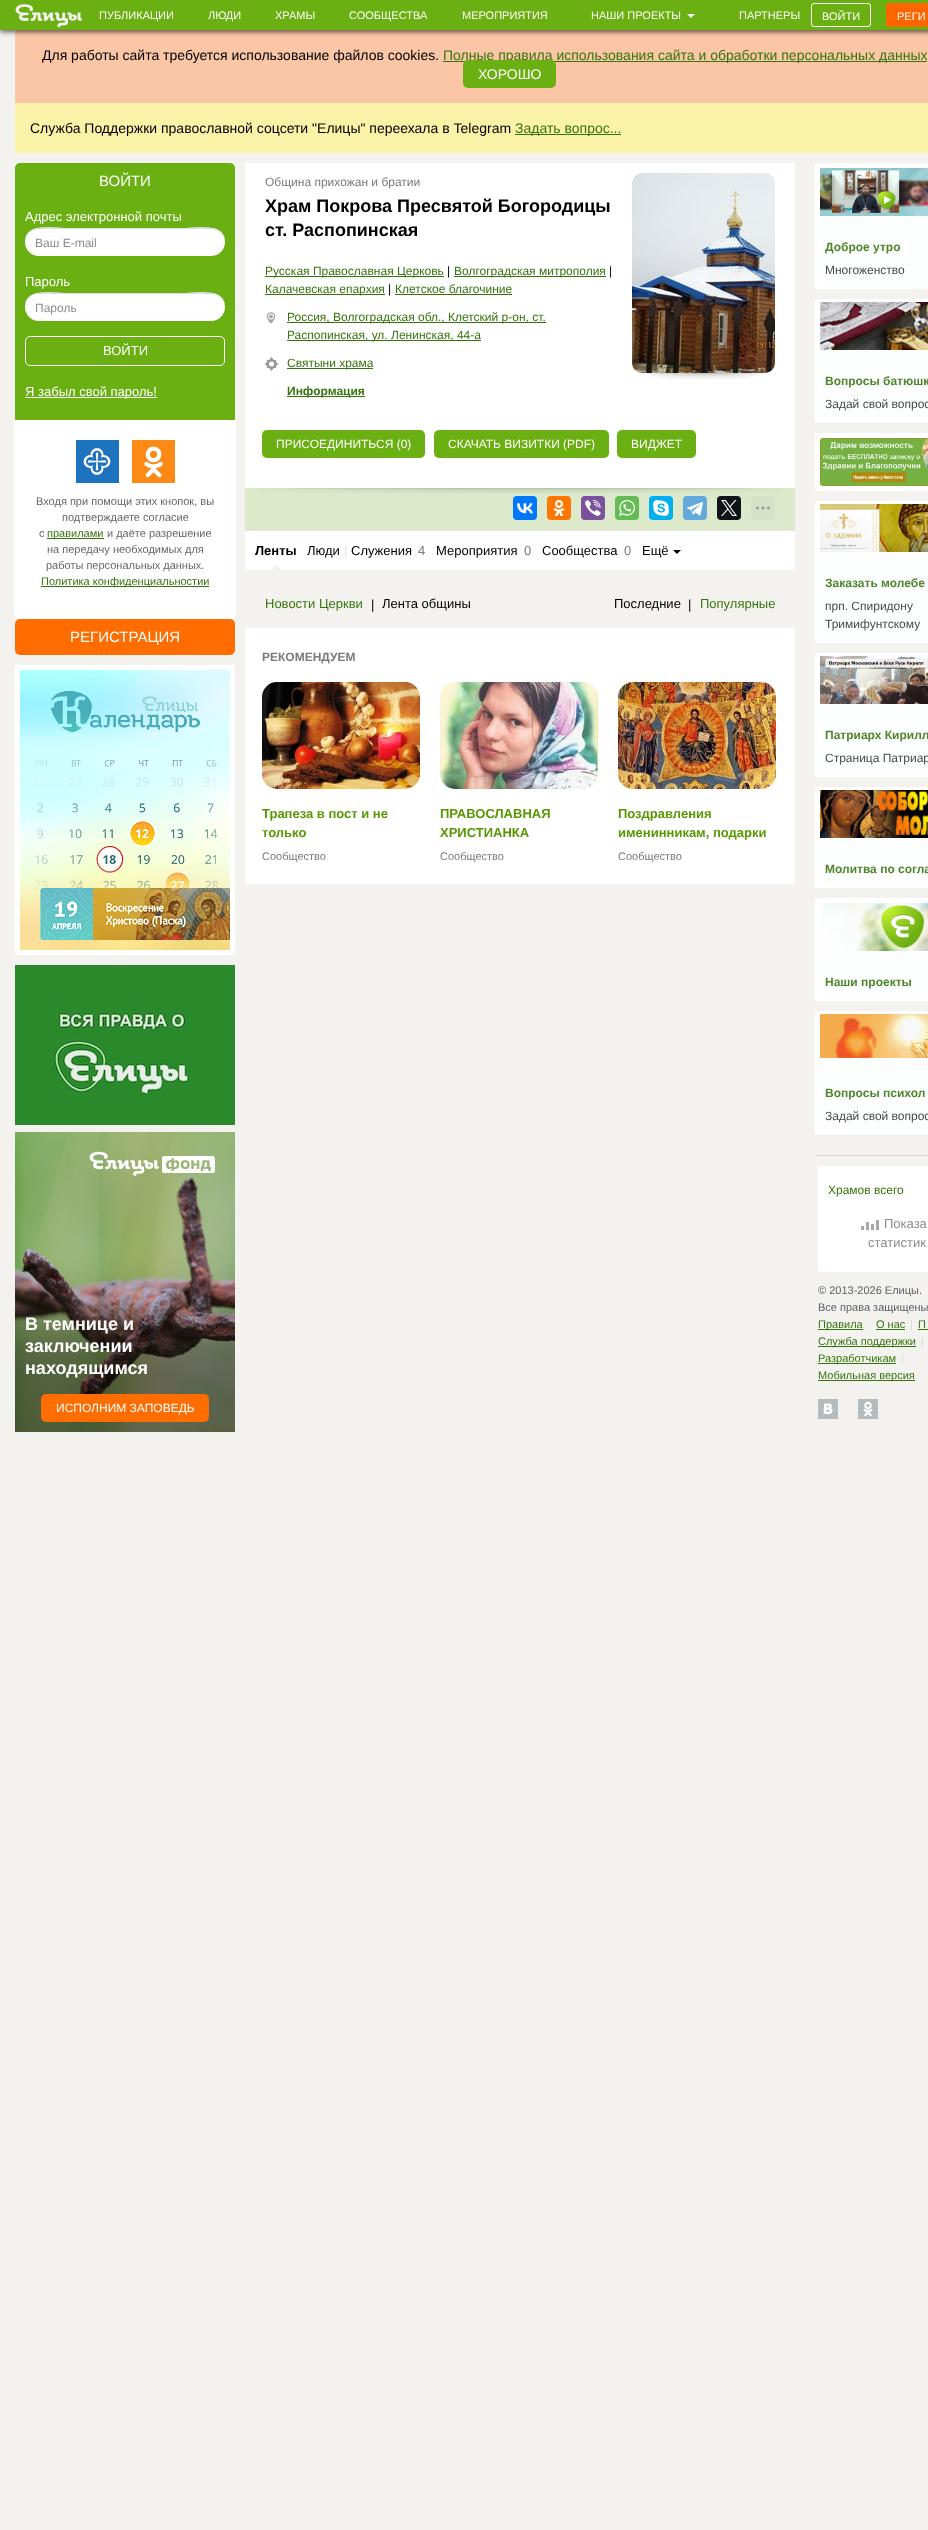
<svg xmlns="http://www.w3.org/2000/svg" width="928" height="2530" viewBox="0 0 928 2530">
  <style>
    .t1 { font: 11px Liberation Sans; fill: #fff; }
    .t2 { font: 14px Liberation Sans; fill: #000; }
    .t3 { font: 14px Liberation Sans; fill: #36750c; }
    .t4 { font: 14px Liberation Sans; fill: #fff; }
    .t5 { font: 15px Liberation Sans; fill: #fff; }
    .t6 { font: 13px Liberation Sans; fill: #fff; }
    .t7 { font: 12px Liberation Sans; fill: #8c8c8c; }
    .t8 { font: 11px Liberation Sans; fill: #666; }
    .t9 { font: 11px Liberation Sans; fill: #36750c; }
    .t10 { font: bold 18px Liberation Sans; fill: #fff; }
    .t11 { font: 12px Liberation Sans; fill: #fff; }
    .t12 { font: 12px Liberation Sans; fill: #7a7a7a; }
    .t13 { font: bold 18px Liberation Sans; fill: #000; }
    .t14 { font: 12px Liberation Sans; fill: #36750c; }
    .t15 { font: 12px Liberation Sans; fill: #000; }
    .t16 { font: bold 12px Liberation Sans; fill: #36750c; }
    .t17 { font: bold 13px Liberation Sans; fill: #000; }
    .t18 { font: 13px Liberation Sans; fill: #000; }
    .t19 { font: 13px Liberation Sans; fill: #e4e4e4; }
    .t20 { font: 13px Liberation Sans; fill: #7a7a7a; }
    .t21 { font: 13px Liberation Sans; fill: #36750c; }
    .t22 { font: bold 12px Liberation Sans; fill: #7a7a7a; }
    .t23 { font: bold 13px Liberation Sans; fill: #579803; }
    .t24 { font: 11px Liberation Sans; fill: #7a7a7a; }
    .t25 { font: bold 12px Liberation Sans; fill: #4f862b; }
    .t26 { font: 12px Liberation Sans; fill: #4b4b46; }
    .t27 { font: 13px Liberation Sans; fill: #8c8c8c; }
    .t28 { font: 11px Liberation Sans; fill: #5a6166; }
    .t29 { font: 11px Liberation Sans; fill: #dad9d6; }
  </style>
  <rect width="100%" height="100%" fill="#f3f2ef"/>
  <rect x="15" y="30" width="913" height="73" fill="#fac6a6"/>
  <rect x="0" y="2" width="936" height="30" fill="#00000099" filter="blur(2.5px)"/>
  <rect x="0" y="0" width="928" height="30" fill="#6bb012"/>
  <image x="15" y="4" width="67" height="24" href="images/1.png"/>
  <text x="99" y="19" class="t1">ПУБЛИКАЦИИ</text>
  <text x="208" y="19" class="t1">ЛЮДИ</text>
  <text x="275" y="19" class="t1">ХРАМЫ</text>
  <text x="349" y="19" class="t1">СООБЩЕСТВА</text>
  <text x="462" y="19" class="t1">МЕРОПРИЯТИЯ</text>
  <text x="591" y="19" class="t1">НАШИ ПРОЕКТЫ</text>
  <path d="M687 14H695L691 18Z" fill="#fff"/>
  <text x="739" y="19" class="t1">ПАРТНЕРЫ</text>
  <rect x="811.5" y="3.5" width="59" height="23" rx="2.5" fill="none" stroke="#fff"/>
  <text x="822" y="20" class="t1">ВОЙТИ</text>
  <rect x="886.5" y="3.5" width="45" height="23" rx="2.5" fill="#f60" stroke="#f60"/>
  <text x="897" y="20" class="t1">РЕГИ</text>
  <text x="42" y="60" class="t2">Для работы сайта требуется использование файлов cookies.</text>
  <rect x="443" y="61" width="484" height="1" fill="#36750c"/>
  <text x="443" y="60" class="t3">Полные правила использования сайта и обработки персональных данных</text>
  <rect x="463" y="60" width="93" height="28" rx="5" fill="#6bb012"/>
  <text x="478" y="79" class="t4">ХОРОШО</text>
  <rect x="15" y="103" width="913" height="50" fill="#faf2a6"/>
  <text x="30" y="133" class="t2">Служба Поддержки православной соцсети "Елицы" переехала в Telegram</text>
  <rect x="515" y="134" width="106" height="1" fill="#36750c"/>
  <text x="515" y="133" class="t3">Задать вопрос...</text>
  <rect x="15" y="163" width="220" height="446" rx="5" fill="#6bb012"/>
  <text x="99" y="186" class="t5">ВОЙТИ</text>
  <text x="25" y="221" class="t6">Адрес электронной почты</text>
  <rect x="25" y="228" width="200" height="28" rx="14" fill="#fff"/>
  <path d="M39 229H211C219 229 225 235 225 242C226 221 192 228 182 228H68C58 228 24 221 25 242C25 235 31 229 39 229Z" fill="#ddd"/>
  <text x="35" y="247" class="t7">Ваш E-mail</text>
  <text x="25" y="286" class="t6">Пароль</text>
  <rect x="25" y="293" width="200" height="28" rx="14" fill="#fff"/>
  <path d="M39 294H211C219 294 225 300 225 307C226 286 192 293 182 293H68C58 293 24 286 25 307C25 300 31 294 39 294Z" fill="#ddd"/>
  <text x="35" y="312" class="t7">Пароль</text>
  <rect x="25.5" y="336.5" width="199" height="29" rx="4.5" fill="none" stroke="#fff"/>
  <text x="103" y="355" class="t6">ВОЙТИ</text>
  <rect x="25" y="397" width="132" height="1" fill="#fff"/>
  <text x="25" y="396" class="t6">Я забыл свой пароль!</text>
  <path d="M14 420H236V614C236 617 234 619 231 619H19C16 619 14 617 14 614Z" fill="#fff"/>
  <image x="76" y="440" width="43" height="43" href="images/2.png"/>
  <image x="132" y="440" width="43" height="43" href="images/3.png"/>
  <text x="36" y="505" class="t8">Входя при помощи этих кнопок, вы</text>
  <text x="62" y="521" class="t8">подтверждаете согласие</text>
  <text x="39" y="537" class="t8">с</text>
  <rect x="47" y="538" width="57" height="1" fill="#36750c"/>
  <text x="47" y="537" class="t9">правилами</text>
  <text x="107" y="537" class="t8">и даёте разрешение</text>
  <text x="47" y="553" class="t8">на передачу необходимых для</text>
  <text x="46" y="569" class="t8">работы персональных данных.</text>
  <rect x="41" y="586" width="168" height="1" fill="#36750c"/>
  <text x="41" y="585" class="t9">Политика конфиденциальностии</text>
  <rect x="15" y="619" width="220" height="36" rx="5" fill="#ff6c00"/>
  <text x="70" y="642" class="t5">РЕГИСТРАЦИЯ</text>
  <image x="15" y="665" width="220" height="290" href="images/4.png"/>
  <image x="15" y="965" width="220" height="160" href="images/5.png"/>
  <image x="15" y="1132" width="220" height="300" href="images/6.png"/>
  <text x="25" y="1330" class="t10">В темнице и</text>
  <text x="25" y="1352" class="t10">заключении</text>
  <text x="25" y="1374" class="t10">находящимся</text>
  <rect x="41" y="1394" width="168" height="28" rx="5" fill="#ff6c00"/>
  <text x="56" y="1412" class="t11">ИСПОЛНИМ ЗАПОВЕДЬ</text>
  <rect x="245" y="163" width="550" height="325" fill="#fff"/>
  <text x="265" y="186" class="t12">Община прихожан и братии</text>
  <text x="265" y="212" class="t13">Храм Покрова Пресвятой Богородицы</text>
  <text x="265" y="236" class="t13">ст. Распопинская</text>
  <rect x="265" y="276" width="179" height="1" fill="#36750c"/>
  <text x="265" y="275" class="t14">Русская Православная Церковь</text>
  <text x="447" y="275" class="t15">|</text>
  <rect x="454" y="276" width="152" height="1" fill="#36750c"/>
  <text x="454" y="275" class="t14">Волгоградская митрополия</text>
  <text x="609" y="275" class="t15">|</text>
  <rect x="265" y="294" width="120" height="1" fill="#36750c"/>
  <text x="265" y="293" class="t14">Калачевская епархия</text>
  <text x="388" y="293" class="t15">|</text>
  <text x="395" y="293" class="t14">Клетское благочиние</text>
  <rect x="395" y="294" width="117" height="1" fill="#36750c"/>
  <image x="266" y="312" width="10" height="11" href="images/7.png"/>
  <rect x="287" y="322" width="259" height="1" fill="#36750c"/>
  <text x="287" y="321" class="t14">Россия, Волгоградская обл., Клетский р-он, ст.</text>
  <rect x="287" y="340" width="194" height="1" fill="#36750c"/>
  <text x="287" y="339" class="t14">Распопинская, ул. Ленинская, 44-а</text>
  <image x="265" y="357" width="13" height="14" href="images/8.png"/>
  <rect x="287" y="368" width="86" height="1" fill="#36750c"/>
  <text x="287" y="367" class="t14">Святыни храма</text>
  <rect x="287" y="396" width="78" height="1" fill="#36750c"/>
  <text x="287" y="395" class="t16">Информация</text>
  <image x="637" y="372" width="133" height="8" href="images/9.png"/>
  <image x="632" y="173" width="143" height="200" href="images/10.png"/>
  <rect x="262" y="430" width="163" height="28" rx="5" fill="#6bb012"/>
  <text x="276" y="448" class="t11">ПРИСОЕДИНИТЬСЯ (0)</text>
  <rect x="434" y="430" width="175" height="28" rx="5" fill="#6bb012"/>
  <text x="448" y="448" class="t11">СКАЧАТЬ ВИЗИТКИ (PDF)</text>
  <rect x="617" y="430" width="79" height="28" rx="5" fill="#6bb012"/>
  <text x="631" y="448" class="t11">ВИДЖЕТ</text>
  <rect x="245" y="488" width="550" height="42" fill="#dce9cb"/>
  <image x="260" y="488" width="519" height="6" href="images/11.png"/>
  <rect x="513" y="496" width="24" height="24" rx="4" fill="#07f"/>
  <image x="517" y="503" width="16" height="11" href="images/12.png"/>
  <rect x="547" y="496" width="24" height="24" rx="4" fill="#f70"/>
  <image x="553" y="500" width="12" height="16" href="images/13.png"/>
  <rect x="581" y="496" width="24" height="24" rx="4" fill="#7b519d"/>
  <image x="585" y="500" width="16" height="16" href="images/14.png"/>
  <rect x="615" y="496" width="24" height="24" rx="4" fill="#65bc54"/>
  <image x="619" y="500" width="16" height="16" href="images/15.png"/>
  <rect x="649" y="496" width="24" height="24" rx="4" fill="#00aff0"/>
  <image x="653" y="500" width="16" height="16" href="images/16.png"/>
  <rect x="683" y="496" width="24" height="24" rx="4" fill="#64a9dc"/>
  <image x="687" y="502" width="16" height="14" href="images/17.png"/>
  <rect x="717" y="496" width="24" height="24" rx="4" fill="#0f1419"/>
  <image x="721" y="500" width="16" height="16" href="images/18.png"/>
  <rect x="751" y="496" width="24" height="24" rx="4" fill="#d5e2c5"/>
  <image x="756" y="506" width="14" height="4" href="images/19.png"/>
  <rect x="245" y="531" width="550" height="39" fill="#fff"/>
  <rect x="245" y="530" width="550" height="1" fill="#e5e5e5"/>
  <text x="255" y="555" class="t17">Ленты</text>
  <image x="272" y="565" width="9" height="5" href="images/20.png"/>
  <text x="307" y="555" class="t18">Люди</text>
  <text x="344" y="555" class="t19">|</text>
  <text x="351" y="555" class="t18">Служения</text>
  <text x="418" y="555" class="t20">4</text>
  <text x="436" y="555" class="t18">Мероприятия</text>
  <text x="524" y="555" class="t20">0</text>
  <text x="542" y="555" class="t18">Сообщества</text>
  <text x="624" y="555" class="t20">0</text>
  <text x="642" y="555" class="t18">Ещё</text>
  <path d="M673 550H681L677 554Z" fill="#000"/>
  <text x="265" y="608" class="t21">Новости Церкви</text>
  <text x="371" y="609" class="t18">|</text>
  <text x="382" y="608" class="t18">Лента общины</text>
  <text x="614" y="608" class="t18">Последние</text>
  <text x="688" y="609" class="t18">|</text>
  <text x="700" y="608" class="t21">Популярные</text>
  <rect x="245" y="628" width="550" height="256" fill="#fff"/>
  <text x="262" y="661" class="t22">РЕКОМЕНДУЕМ</text>
  <image x="262" y="682" width="158" height="107" href="images/21.png"/>
  <text x="262" y="818" class="t23">Трапеза в пост и не</text>
  <text x="262" y="837" class="t23">только</text>
  <text x="262" y="860" class="t24">Сообщество</text>
  <image x="440" y="682" width="158" height="107" href="images/22.png"/>
  <text x="440" y="818" class="t23">ПРАВОСЛАВНАЯ</text>
  <text x="440" y="837" class="t23">ХРИСТИАНКА</text>
  <text x="440" y="860" class="t24">Сообщество</text>
  <image x="618" y="682" width="158" height="107" href="images/23.png"/>
  <text x="618" y="818" class="t23">Поздравления</text>
  <text x="618" y="837" class="t23">именинникам, подарки</text>
  <text x="618" y="860" class="t24">Сообщество</text>
  <rect x="820" y="216" width="108" height="68" fill="#fdffff"/>
  <rect x="817.5" y="165.5" width="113" height="121" fill="none" stroke="#fff" stroke-width="5"/>
  <image x="820" y="168" width="108" height="48" href="images/24.png"/>
  <text x="825" y="251" class="t25">Доброе утро</text>
  <text x="825" y="274" class="t26">Многоженство</text>
  <rect x="820" y="350" width="108" height="68" fill="#fdffff"/>
  <rect x="817.5" y="301.5" width="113" height="119" fill="none" stroke="#fff" stroke-width="5"/>
  <image x="820" y="302" width="108" height="48" href="images/25.png"/>
  <text x="825" y="385" class="t25">Вопросы батюшк</text>
  <text x="825" y="408" class="t26">Задай свой вопрос</text>
  <rect x="817.5" y="435.5" width="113" height="53" fill="none" stroke="#fff" stroke-width="5"/>
  <image x="820" y="438" width="108" height="48" href="images/26.png"/>
  <rect x="820" y="552" width="108" height="86" fill="#fdffff"/>
  <rect x="817.5" y="503.5" width="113" height="137" fill="none" stroke="#fff" stroke-width="5"/>
  <image x="820" y="504" width="108" height="48" href="images/27.png"/>
  <text x="825" y="587" class="t25">Заказать молебе</text>
  <text x="825" y="610" class="t26">прп. Спиридону</text>
  <text x="825" y="628" class="t26">Тримифунтскому</text>
  <rect x="820" y="704" width="108" height="68" fill="#fdffff"/>
  <rect x="817.5" y="655.5" width="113" height="119" fill="none" stroke="#fff" stroke-width="5"/>
  <image x="820" y="656" width="108" height="48" href="images/28.png"/>
  <text x="825" y="739" class="t25">Патриарх Кирилл</text>
  <text x="825" y="762" class="t26">Страница Патриар</text>
  <rect x="820" y="838" width="108" height="45" fill="#fdffff"/>
  <rect x="817.5" y="789.5" width="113" height="96" fill="none" stroke="#fff" stroke-width="5"/>
  <image x="820" y="790" width="108" height="48" href="images/29.png"/>
  <text x="825" y="873" class="t25">Молитва по согла</text>
  <rect x="817.5" y="900.5" width="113" height="98" fill="#fdffff" stroke="#fff" stroke-width="5"/>
  <image x="821" y="903" width="107" height="48" href="images/30.png"/>
  <text x="825" y="986" class="t25">Наши проекты</text>
  <rect x="820" y="1058" width="108" height="72" fill="#fdffff"/>
  <rect x="817.5" y="1013.5" width="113" height="119" fill="none" stroke="#fff" stroke-width="5"/>
  <image x="820" y="1014" width="108" height="44" href="images/31.png"/>
  <text x="825" y="1097" class="t25">Вопросы психол</text>
  <text x="825" y="1120" class="t26">Задай свой вопрос</text>
  <rect x="815" y="1155" width="113" height="1" fill="#dad9d7"/>
  <rect x="818" y="1166" width="110" height="106" fill="#fff"/>
  <text x="828" y="1194" class="t14">Храмов всего</text>
  <image x="861" y="1220" width="18" height="10" href="images/32.png"/>
  <text x="884" y="1228" class="t27">Показа</text>
  <text x="868" y="1247" class="t27">статистик</text>
  <text x="818" y="1294" class="t28">© 2013-2026 Елицы.</text>
  <text x="818" y="1311" class="t28">Все права защищены</text>
  <rect x="818" y="1329" width="45" height="1" fill="#36750c"/>
  <text x="818" y="1328" class="t9">Правила</text>
  <text x="876" y="1328" class="t9">О нас</text>
  <rect x="876" y="1329" width="29" height="1" fill="#36750c"/>
  <text x="910" y="1328" class="t29">|</text>
  <text x="918" y="1328" class="t9">П</text>
  <rect x="918" y="1329" width="10" height="1" fill="#36750c"/>
  <rect x="818" y="1346" width="98" height="1" fill="#36750c"/>
  <text x="818" y="1345" class="t9">Служба поддержки</text>
  <text x="921" y="1345" class="t29">|</text>
  <rect x="818" y="1363" width="78" height="1" fill="#36750c"/>
  <text x="818" y="1362" class="t9">Разработчикам</text>
  <text x="901" y="1362" class="t29">|</text>
  <rect x="818" y="1380" width="97" height="1" fill="#36750c"/>
  <text x="818" y="1379" class="t9">Мобильная версия</text>
  <image x="818" y="1399" width="20" height="20" href="images/33.png"/>
  <image x="858" y="1399" width="20" height="20" href="images/34.png"/>
</svg>
